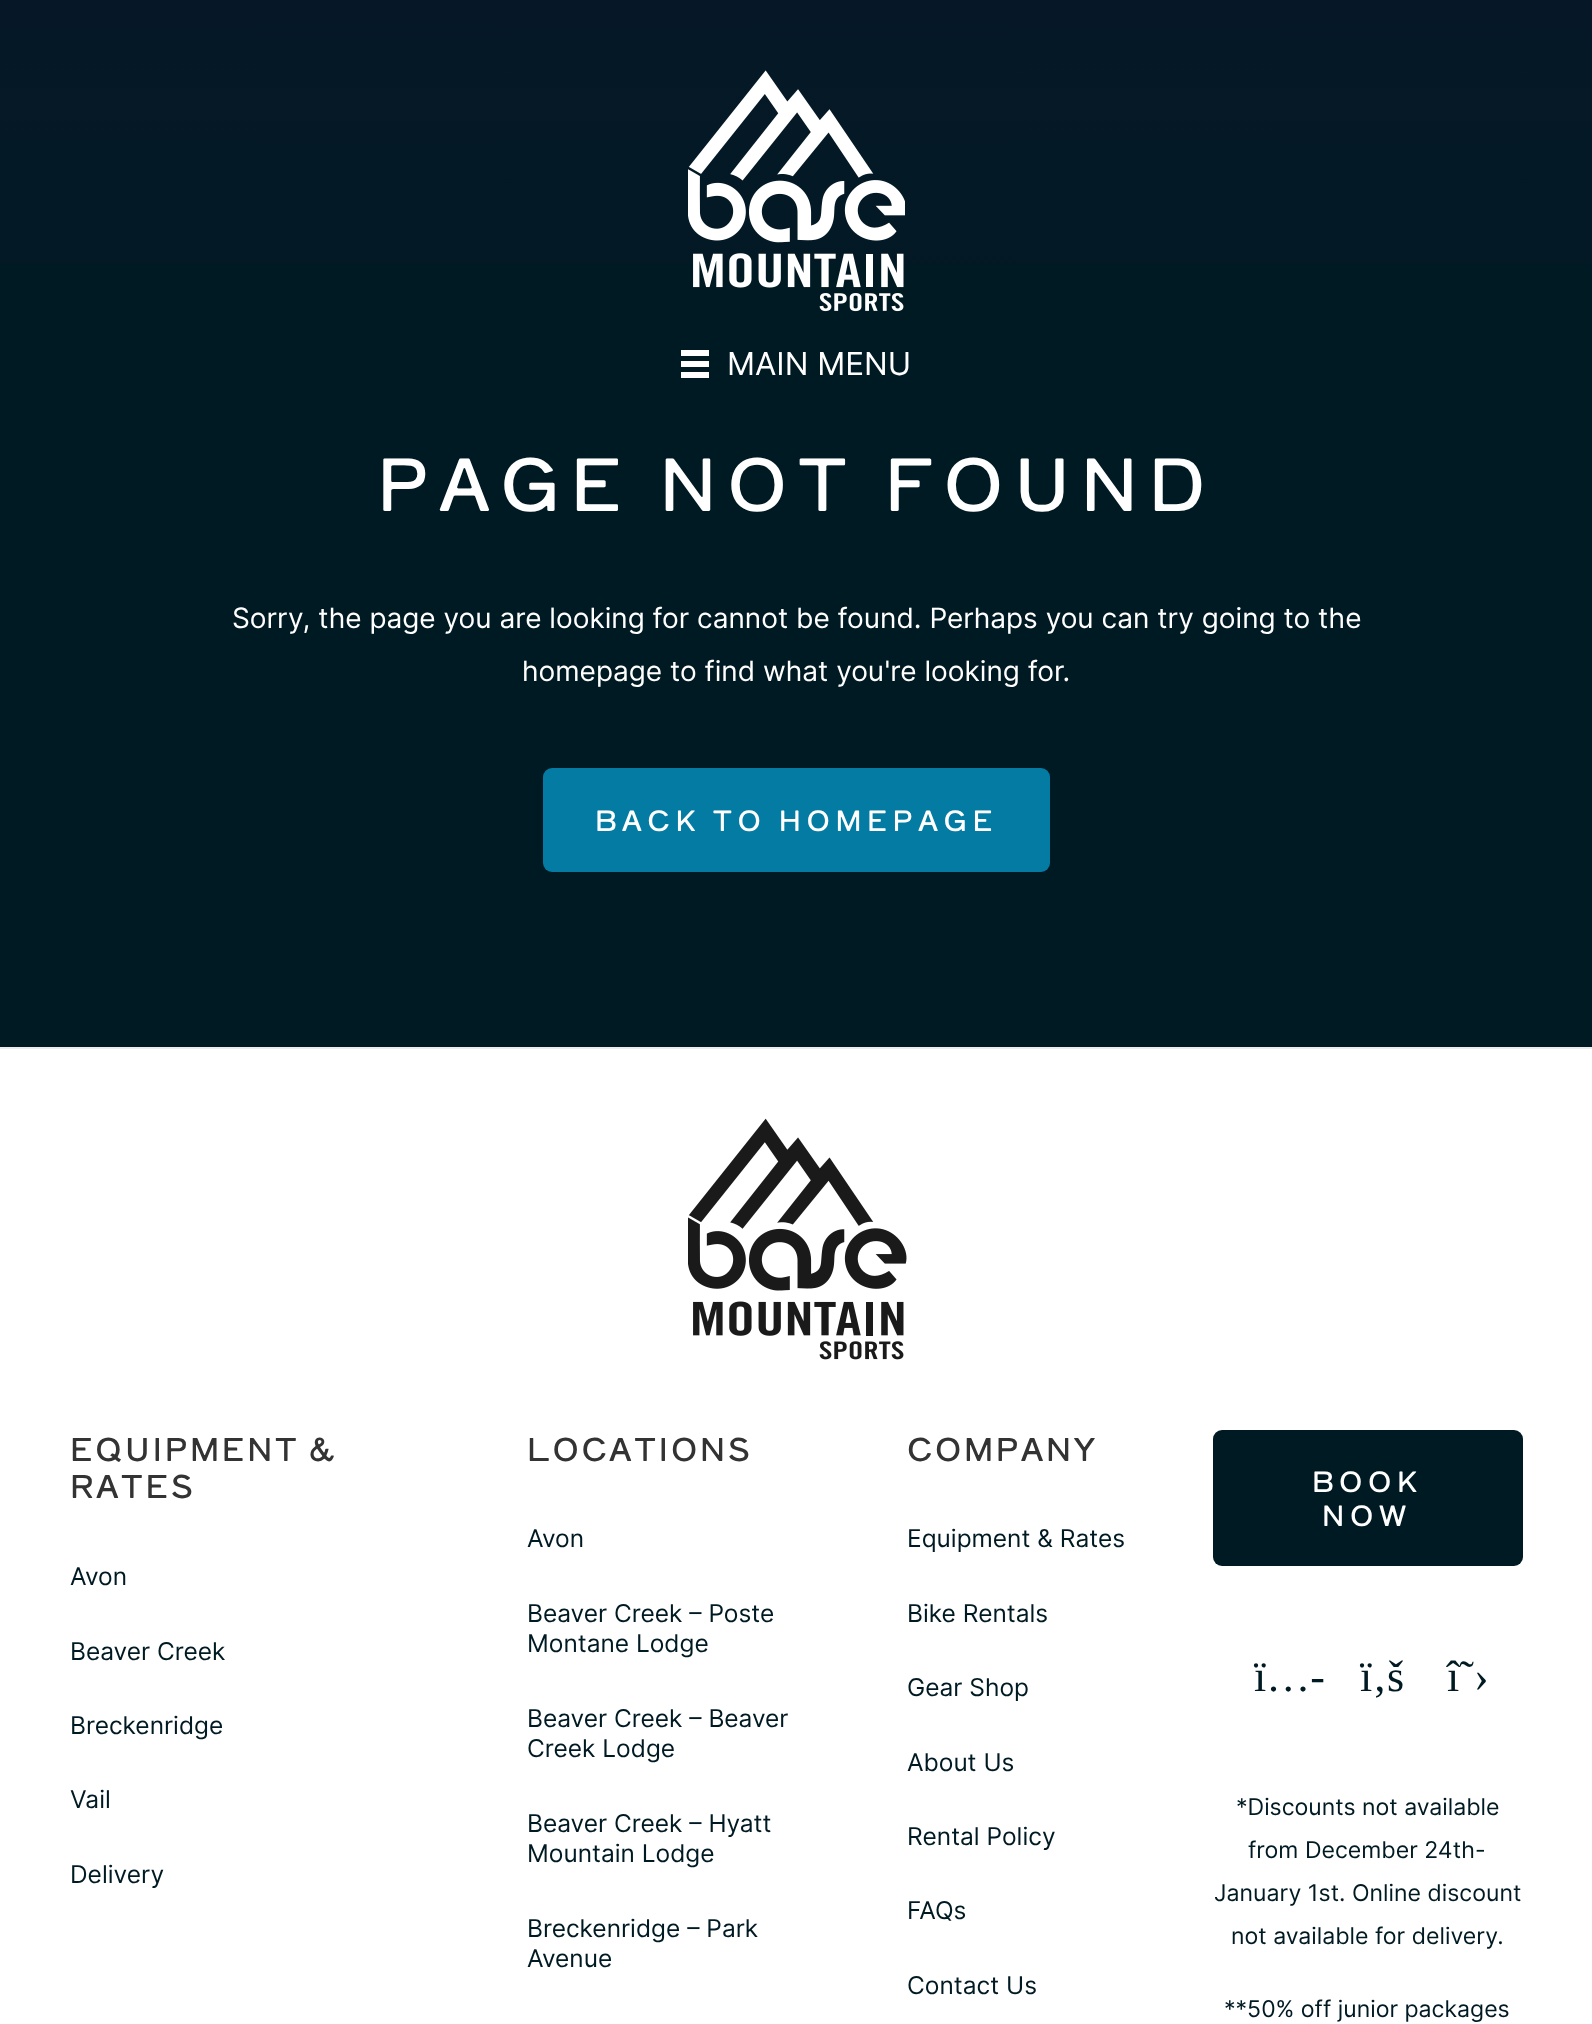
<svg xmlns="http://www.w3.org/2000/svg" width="1592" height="2024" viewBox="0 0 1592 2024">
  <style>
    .t1 { font: 31.5px Inter; fill: #fff; }
    .t2 { font: 71.7px 'Shippori Antique B1'; letter-spacing: 10.75px; fill: #fff; }
    .t3 { font: 28px Inter; fill: #fff; }
    .t4 { font: 28px 'Shippori Antique B1'; letter-spacing: 5.6px; fill: #fff; }
    .t5 { font: 31.5px 'Shippori Antique B1'; letter-spacing: 2.75px; fill: #333; }
    .t6 { font: 24.5px Inter; fill: #001a23; }
    .t7 { font: 44px Liberation Serif; fill: #001a23; }
    .t8 { font: 23.1px Inter; fill: #001a23; }
  </style>
  <defs>
    <linearGradient id="g1" gradientUnits="userSpaceOnUse" x1="796" y1="0" x2="796" y2="453"><stop offset="0" stop-color="#061827"/><stop offset="1" stop-color="#001a23"/></linearGradient>
  </defs>
  <rect width="100%" height="100%" fill="#001a23"/>
  <rect x="0" y="0" width="1592" height="264" fill="url(#g1)"/>
  <image x="688" y="70" width="217" height="242" href="images/1.png"/>
  <rect x="681" y="350" width="28" height="6" fill="#fff"/>
  <rect x="681" y="361" width="28" height="6" fill="#fff"/>
  <rect x="681" y="372" width="28" height="6" fill="#fff"/>
  <text x="727" y="375" class="t1">MAIN MENU</text>
  <text x="377" y="511" class="t2">PAGE NOT FOUND</text>
  <text x="232" y="628" class="t3">Sorry, the page you are looking for cannot be found. Perhaps you can try going to the</text>
  <text x="522" y="681" class="t3">homepage to find what you're looking for.</text>
  <rect x="543" y="768" width="507" height="104" rx="9" fill="#037ba3"/>
  <text x="595" y="831" class="t4">BACK TO HOMEPAGE</text>
  <rect x="0" y="1049" width="1592" height="975" fill="#fff"/>
  <rect x="0" y="1047" width="1592" height="2" fill="#ececec"/>
  <image x="688" y="1118" width="219" height="242" href="images/2.png"/>
  <text x="70" y="1461" class="t5">EQUIPMENT &amp;</text>
  <text x="70" y="1498" class="t5">RATES</text>
  <text x="70" y="1585" class="t6">Avon</text>
  <text x="70" y="1660" class="t6">Beaver Creek</text>
  <text x="70" y="1734" class="t6">Breckenridge</text>
  <text x="70" y="1808" class="t6">Vail</text>
  <text x="70" y="1883" class="t6">Delivery</text>
  <text x="527" y="1461" class="t5">LOCATIONS</text>
  <text x="527" y="1547" class="t6">Avon</text>
  <text x="527" y="1622" class="t6">Beaver Creek – Poste</text>
  <text x="527" y="1652" class="t6">Montane Lodge</text>
  <text x="527" y="1727" class="t6">Beaver Creek – Beaver</text>
  <text x="527" y="1757" class="t6">Creek Lodge</text>
  <text x="527" y="1832" class="t6">Beaver Creek – Hyatt</text>
  <text x="527" y="1862" class="t6">Mountain Lodge</text>
  <text x="527" y="1937" class="t6">Breckenridge – Park</text>
  <text x="527" y="1967" class="t6">Avenue</text>
  <text x="907" y="1461" class="t5">COMPANY</text>
  <text x="907" y="1547" class="t6">Equipment &amp; Rates</text>
  <text x="907" y="1622" class="t6">Bike Rentals</text>
  <text x="907" y="1696" class="t6">Gear Shop</text>
  <text x="907" y="1771" class="t6">About Us</text>
  <text x="907" y="1845" class="t6">Rental Policy</text>
  <text x="907" y="1919" class="t6">FAQs</text>
  <text x="907" y="1994" class="t6">Contact Us</text>
  <rect x="1213" y="1430" width="310" height="136" rx="9" fill="#001a23"/>
  <text x="1312" y="1492" class="t4">BOOK</text>
  <text x="1322" y="1526" class="t4">NOW</text>
  <text x="1254" y="1691" class="t7">ï…-</text>
  <text x="1360" y="1691" class="t7">ï‚š</text>
  <text x="1447" y="1691" class="t7">î˜›</text>
  <text x="1236" y="1815" class="t8">*Discounts not available</text>
  <text x="1248" y="1858" class="t8">from December 24th-</text>
  <text x="1214" y="1901" class="t8">January 1st. Online discount</text>
  <text x="1231" y="1944" class="t8">not available for delivery.</text>
  <text x="1224" y="2017" class="t8">**50% off junior packages</text>
</svg>
